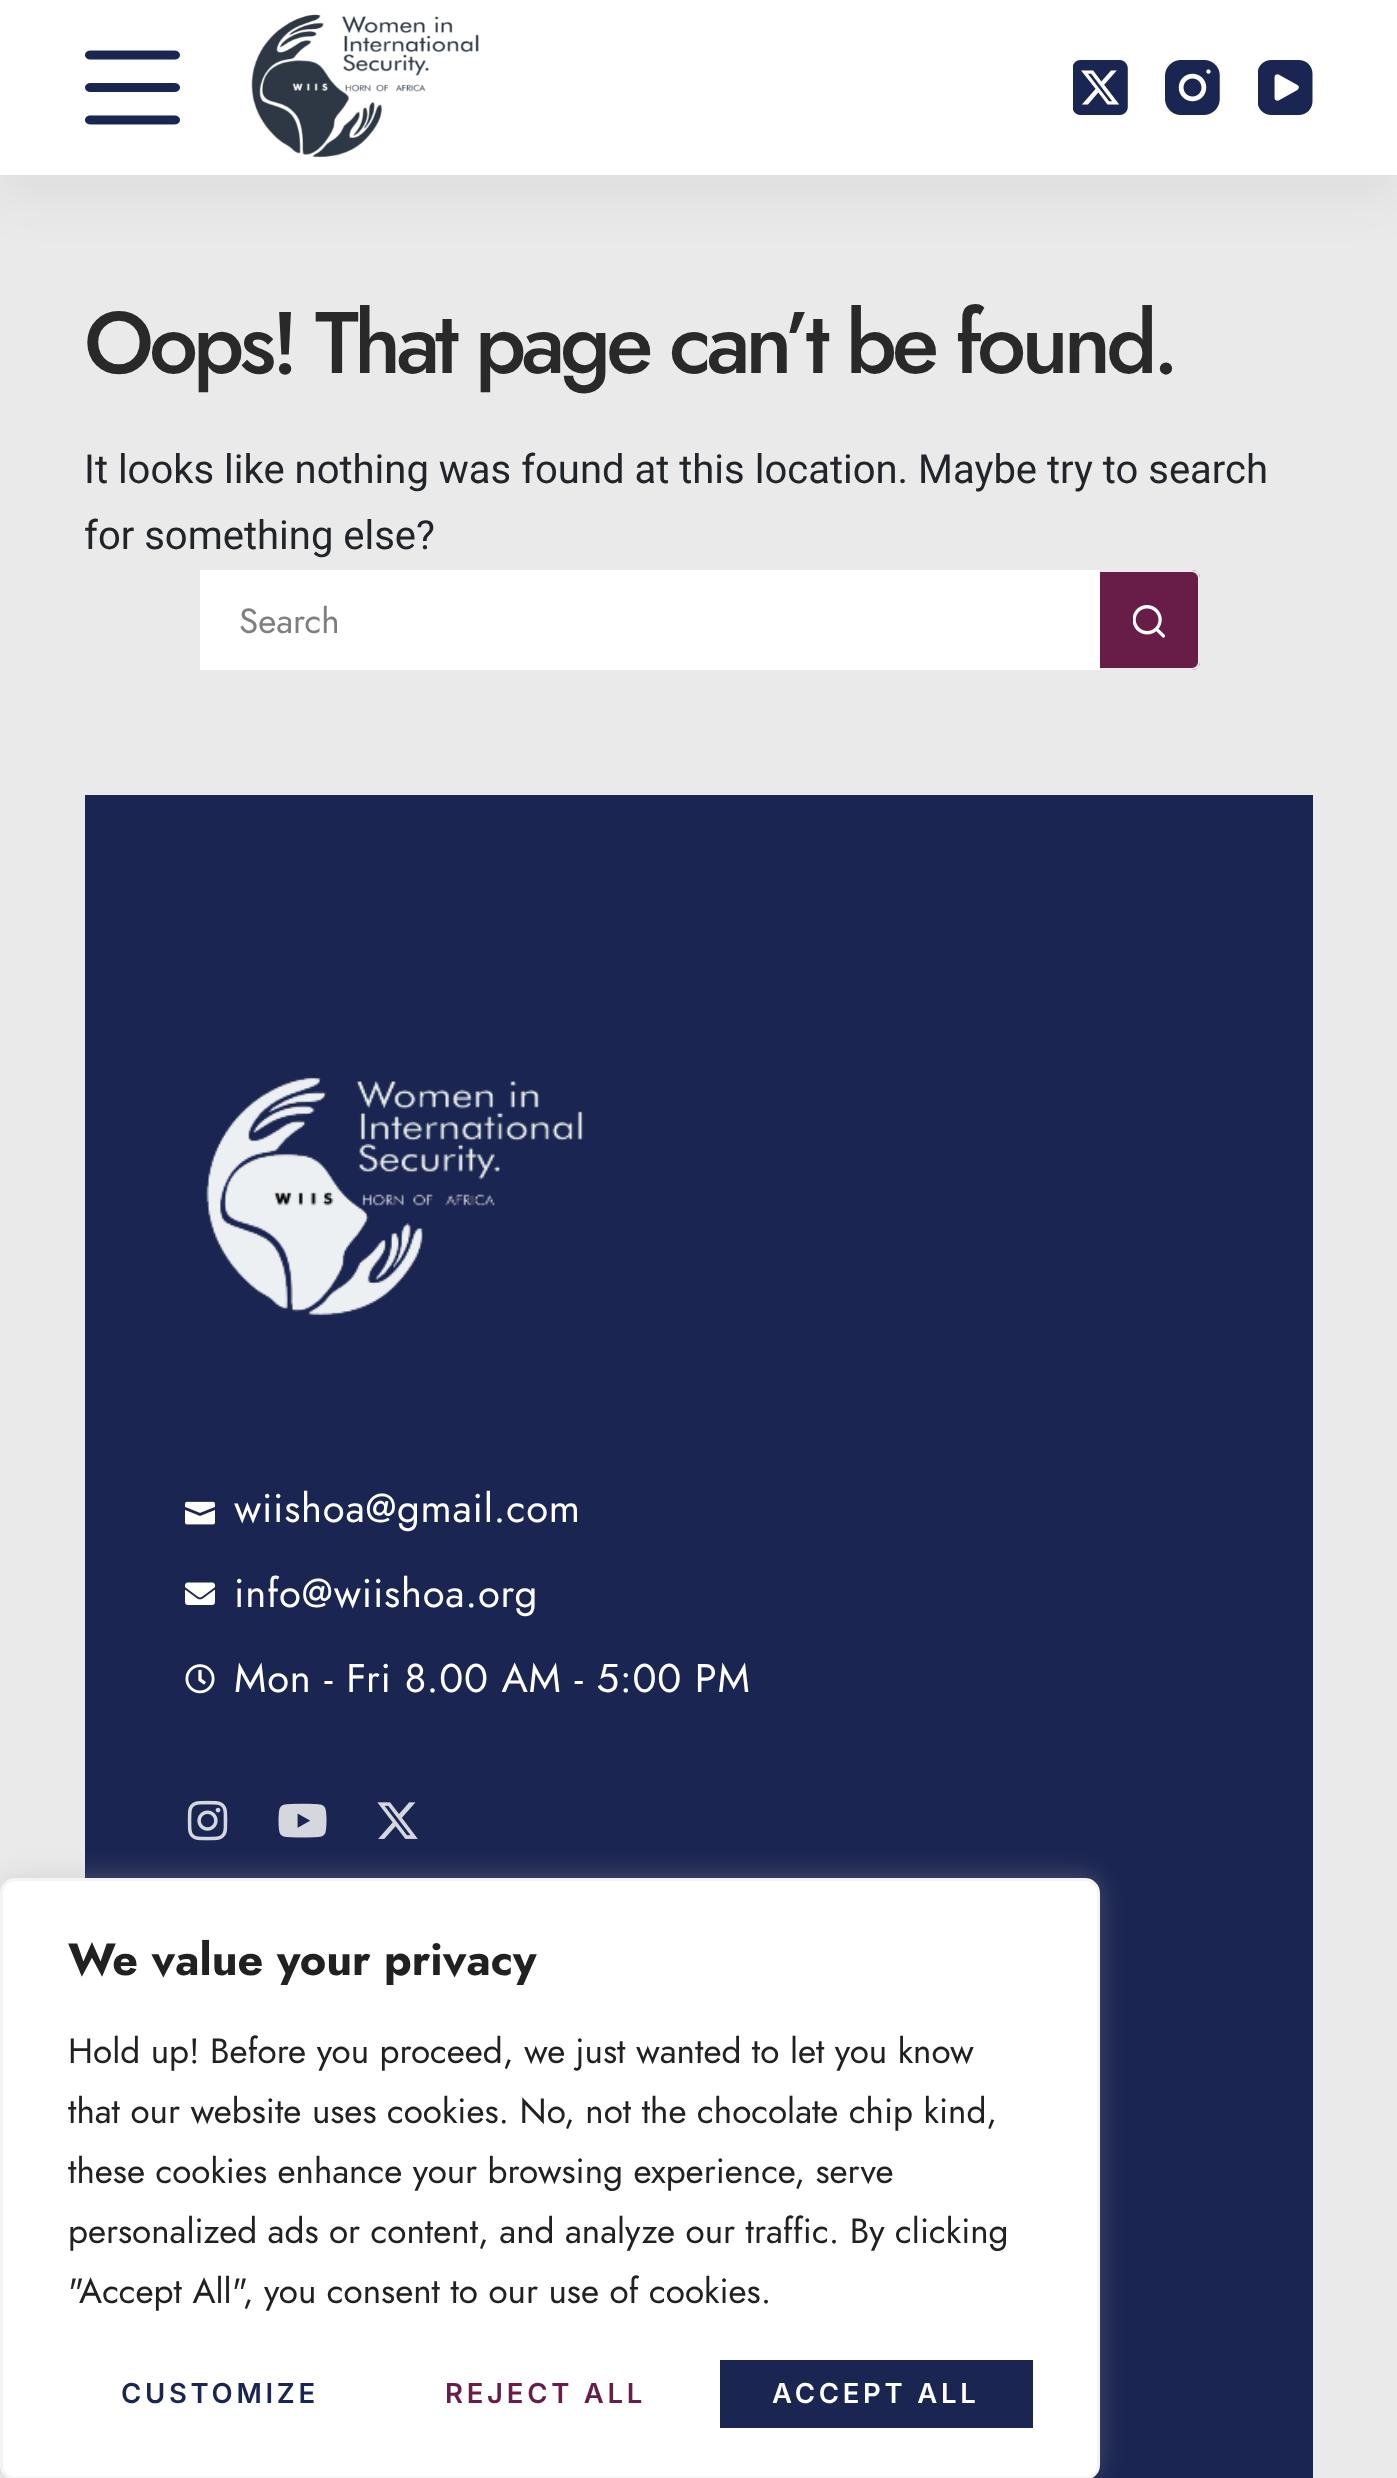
<svg xmlns="http://www.w3.org/2000/svg" width="1397" height="2478" viewBox="0 0 1397 2478">
  <style>
    .t1 { font: 500 87.1px Jost; letter-spacing: -5px; fill: #292929; }
    .t2 { font: 40px Roboto; fill: #212529; }
    .t3 { font: 35px Jost; fill: #7f7f7f; }
    .t4 { font: 40px Jost; letter-spacing: 0.75px; fill: #fff; }
    .t5 { font: bold 45px Jost; fill: #212121; }
    .t6 { font: 35px Jost; fill: #212121; }
    .t7 { font: 600 27.5px Inter; letter-spacing: 3.75px; fill: #1a2551; }
    .t8 { font: 600 27.5px Inter; letter-spacing: 3.75px; fill: #681d49; }
    .t9 { font: 600 27.5px Inter; letter-spacing: 3.75px; fill: #fff; }
  </style>
  <rect width="100%" height="100%" fill="#eaeaea"/>
  <rect x="0" y="25" width="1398" height="175" fill="#23282d0f" filter="blur(25px)"/>
  <rect x="0" y="0" width="1397" height="175" fill="#fff"/>
  <image x="85" y="50" width="95" height="75" href="images/1.png"/>
  <image x="251" y="14" width="228" height="144" href="images/2.png"/>
  <image x="1073" y="60" width="55" height="55" href="images/3.png"/>
  <image x="1165" y="60" width="55" height="55" href="images/4.png"/>
  <image x="1258" y="60" width="55" height="55" href="images/5.png"/>
  <text x="84" y="373" class="t1">Oops! That page can’t be found.</text>
  <text x="84" y="483" class="t2">It looks like nothing was found at this location. Maybe try to search</text>
  <text x="84" y="549" class="t2">for something else?</text>
  <rect x="200" y="570" width="900" height="100" fill="#fff"/>
  <text x="239" y="633" class="t3">Search</text>
  <path d="M1100 570H1192C1196.5 570 1200 573.5 1200 578V662C1200 666.5 1196.5 670 1192 670H1100Z" fill="#681d49"/>
  <path d="M1100 570H1192C1197 570 1200 573 1200 578V662C1200 667 1197 670 1192 670H1100ZM1100 572H1192C1195 572 1198 575 1198 578V662C1198 665 1195 668 1192 668H1100Z" fill="#e7ebee" fill-rule="evenodd"/>
  <image x="1133" y="605" width="32" height="33" href="images/6.png"/>
  <rect x="85" y="795" width="1228" height="1683" fill="#1a2551"/>
  <image x="206" y="1077" width="378" height="239" href="images/7.png"/>
  <image x="185" y="1501" width="30" height="24" href="images/8.png"/>
  <text x="234" y="1522" class="t4">wiishoa@gmail.com</text>
  <image x="185" y="1582" width="30" height="23" href="images/9.png"/>
  <text x="234" y="1607" class="t4">info@wiishoa.org</text>
  <image x="185" y="1664" width="30" height="30" href="images/10.png"/>
  <text x="234" y="1692" class="t4">Mon - Fri 8.00 AM - 5:00 PM</text>
  <image x="187" y="1800" width="41" height="41" href="images/11.png"/>
  <image x="278" y="1803" width="49" height="35" href="images/12.png"/>
  <image x="377" y="1802" width="41" height="37" href="images/13.png"/>
  <rect x="0" y="1875" width="1100" height="603" rx="15" fill="#acabab4d" filter="blur(12.5px)"/>
  <rect x="1.5" y="1879.5" width="1097" height="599" rx="13.5" fill="#fff" stroke="#f4f4f4" stroke-width="3"/>
  <text x="68" y="1975" class="t5">We value your privacy</text>
  <text x="68" y="2063" class="t6">Hold up! Before you proceed, we just wanted to let you know</text>
  <text x="68" y="2123" class="t6">that our website uses cookies. No, not the chocolate chip kind,</text>
  <text x="68" y="2183" class="t6">these cookies enhance your browsing experience, serve</text>
  <text x="68" y="2243" class="t6">personalized ads or content, and analyze our traffic. By clicking</text>
  <text x="68" y="2303" class="t6">"Accept All", you consent to our use of cookies.</text>
  <text x="121" y="2403" class="t7">CUSTOMIZE</text>
  <text x="445" y="2403" class="t8">REJECT ALL</text>
  <rect x="720" y="2360" width="313" height="68" fill="#1a2551"/>
  <text x="772" y="2403" class="t9">ACCEPT ALL</text>
</svg>
